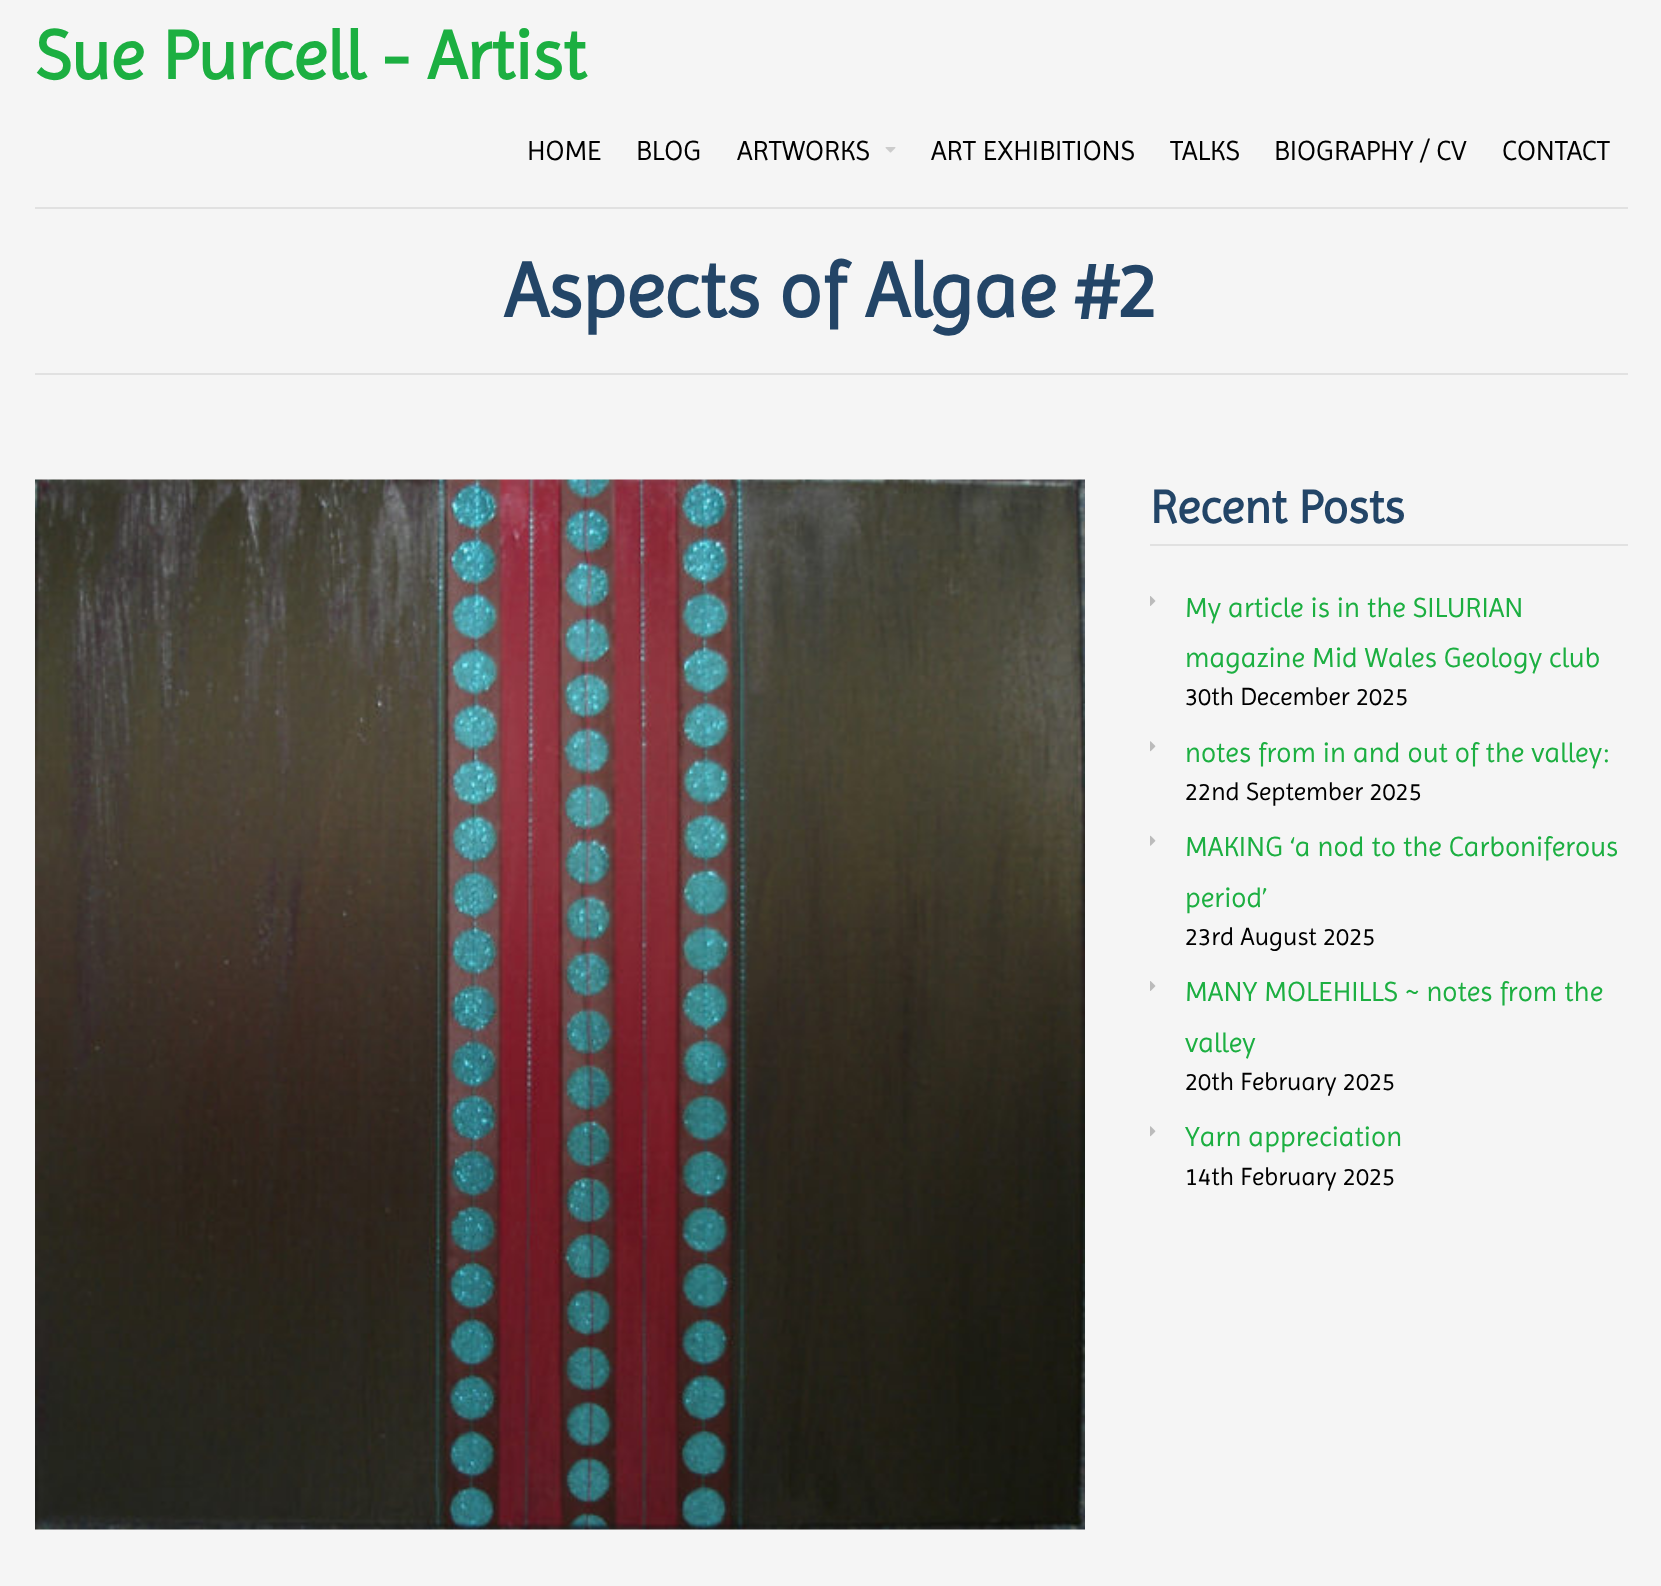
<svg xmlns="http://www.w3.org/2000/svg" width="1661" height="1586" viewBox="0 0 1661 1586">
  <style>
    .t1 { font: bold 70px Imprima; fill: #1caf41; }
    .t2 { font: 28px Imprima; fill: #000; }
    .t3 { font: bold 78.75px Imprima; fill: #234567; }
    .t4 { font: bold 47.25px Imprima; fill: #234567; }
    .t5 { font: 28px Imprima; fill: #1caf41; }
    .t6 { font: 25.25px Imprima; fill: #000; }
  </style>
  <rect width="100%" height="100%" fill="#f5f5f5"/>
  <text x="35" y="79" class="t1">Sue Purcell - Artist</text>
  <text x="527" y="160" class="t2">HOME</text>
  <text x="636" y="160" class="t2">BLOG</text>
  <text x="737" y="160" class="t2">ARTWORKS</text>
  <image x="885" y="147" width="11" height="6" href="images/1.png"/>
  <text x="931" y="160" class="t2">ART EXHIBITIONS</text>
  <text x="1170" y="160" class="t2">TALKS</text>
  <text x="1274" y="160" class="t2">BIOGRAPHY / CV</text>
  <text x="1502" y="160" class="t2">CONTACT</text>
  <rect x="35" y="207" width="1593" height="2" fill="#e1e1e1"/>
  <rect x="35" y="373" width="1593" height="2" fill="#e1e1e1"/>
  <text x="504" y="317" class="t3">Aspects of Algae #2</text>
  <image x="35" y="479" width="1050" height="1051" href="images/2.png"/>
  <rect x="1150" y="544" width="478" height="2" fill="#e1e1e1"/>
  <text x="1150" y="523" class="t4">Recent Posts</text>
  <image x="1150" y="596" width="6" height="10" href="images/3.png"/>
  <text x="1185" y="617" class="t5">My article is in the SILURIAN</text>
  <text x="1185" y="667" class="t5">magazine Mid Wales Geology club</text>
  <text x="1185" y="705" class="t6">30th December 2025</text>
  <image x="1150" y="741" width="6" height="11" href="images/4.png"/>
  <text x="1185" y="762" class="t5">notes from in and out of the valley:</text>
  <text x="1185" y="800" class="t6">22nd September 2025</text>
  <image x="1150" y="835" width="6" height="11" href="images/5.png"/>
  <text x="1185" y="856" class="t5">MAKING ‘a nod to the Carboniferous</text>
  <text x="1185" y="907" class="t5">period’</text>
  <text x="1185" y="945" class="t6">23rd August 2025</text>
  <image x="1150" y="981" width="6" height="10" href="images/3.png"/>
  <text x="1185" y="1001" class="t5">MANY MOLEHILLS ~ notes from the</text>
  <text x="1185" y="1052" class="t5">valley</text>
  <text x="1185" y="1090" class="t6">20th February 2025</text>
  <image x="1150" y="1126" width="6" height="11" href="images/4.png"/>
  <text x="1185" y="1146" class="t5">Yarn appreciation</text>
  <text x="1185" y="1185" class="t6">14th February 2025</text>
</svg>
